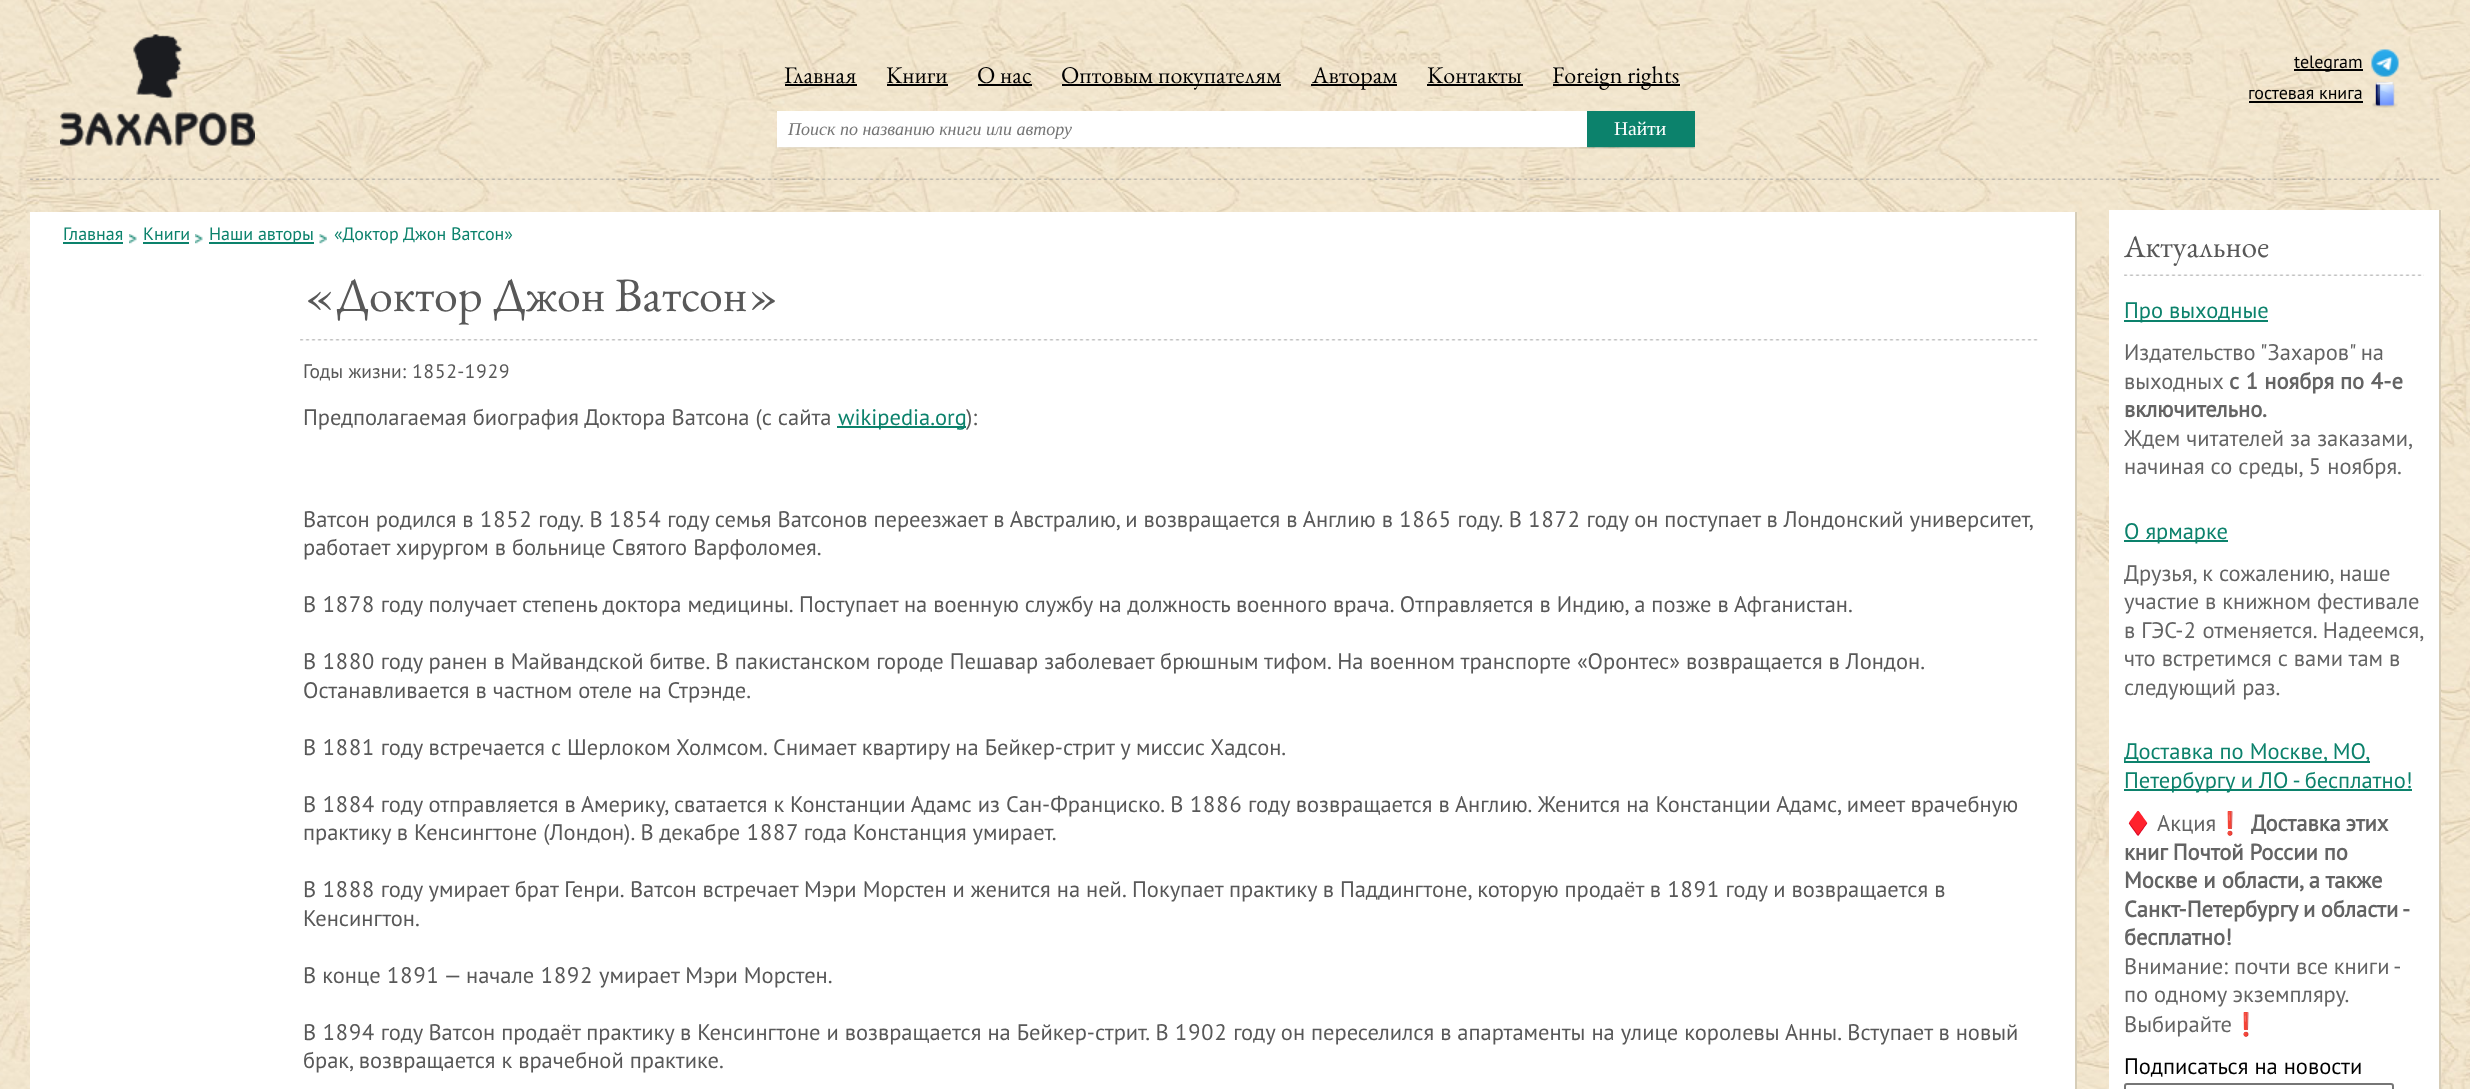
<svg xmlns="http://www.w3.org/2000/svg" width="2470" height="1089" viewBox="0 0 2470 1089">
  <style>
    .t1 { font: 24px EB Garamond; fill: #000; }
    .t2 { font: italic 18px Liberation Serif; fill: #757575; }
    .t3 { font: 19.5px Liberation Serif; fill: #fff; }
    .t4 { font: 18px PT Sans; fill: #000; }
    .t5 { font: 18px PT Sans; fill: #0c826c; }
    .t6 { font: 48px EB Garamond; fill: #585858; }
    .t7 { font: 19.5px PT Sans; fill: #585858; }
    .t8 { font: 22.5px PT Sans; fill: #585858; }
    .t9 { font: 22.5px PT Sans; fill: #0c826c; }
    .t10 { font: 31.5px EB Garamond; fill: #585858; }
    .t11 { font: 22.5px PT Sans; fill: #646464; }
    .t12 { font: bold 22.5px PT Sans; fill: #646464; }
    .t13 { font: 22.5px Noto Color Emoji; fill: #646464; }
    .t14 { font: 22.5px PT Sans; fill: #000; }
  </style>
  <rect width="100%" height="100%" fill="#fff"/>
  <image x="0" y="0" width="2470" height="1089" href="images/1.png"/>
  <image x="30" y="178" width="2410" height="2" href="images/2.png"/>
  <image x="60" y="34" width="195" height="112" href="images/3.png"/>
  <text x="784" y="83" class="t1">Главная</text>
  <rect x="785" y="84" width="72" height="2" fill="#000"/>
  <text x="886" y="83" class="t1">Книги</text>
  <rect x="887" y="84" width="61" height="2" fill="#000"/>
  <text x="977" y="83" class="t1">О нас</text>
  <rect x="978" y="84" width="54" height="2" fill="#000"/>
  <rect x="1062" y="84" width="219" height="2" fill="#000"/>
  <text x="1061" y="83" class="t1">Оптовым покупателям</text>
  <rect x="1311" y="84" width="86" height="2" fill="#000"/>
  <text x="1312" y="83" class="t1">Авторам</text>
  <text x="1427" y="83" class="t1">Контакты</text>
  <rect x="1427" y="84" width="96" height="2" fill="#000"/>
  <rect x="1553" y="84" width="127" height="2" fill="#000"/>
  <text x="1552" y="83" class="t1">Foreign rights</text>
  <image x="777" y="147" width="918" height="2" href="images/4.png"/>
  <rect x="777" y="111" width="810" height="36" fill="#fff"/>
  <text x="788" y="135" class="t2">Поиск по названию книги или автору</text>
  <rect x="1587" y="111" width="108" height="36" fill="#0c826c"/>
  <text x="1614" y="135" class="t3">Найти</text>
  <rect x="2294" y="69" width="69" height="2" fill="#000"/>
  <text x="2294" y="68" class="t4">telegram</text>
  <image x="2371" y="49" width="28" height="28" href="images/5.png"/>
  <text x="2248" y="99" class="t4">гостевая книга</text>
  <rect x="2249" y="101" width="114" height="2" fill="#000"/>
  <image x="2372" y="81" width="26" height="27" href="images/6.png"/>
  <rect x="30" y="212" width="2045" height="877" fill="#fff"/>
  <rect x="2075" y="212" width="2" height="877" fill="#d6cdb8"/>
  <image x="129" y="234" width="8" height="10" href="images/7.png"/>
  <text x="63" y="240" class="t5">Главная</text>
  <rect x="63" y="242" width="60" height="2" fill="#0c826c"/>
  <image x="195" y="234" width="8" height="10" href="images/7.png"/>
  <text x="143" y="240" class="t5">Книги</text>
  <rect x="143" y="242" width="46" height="2" fill="#0c826c"/>
  <image x="319" y="234" width="8" height="10" href="images/8.png"/>
  <rect x="209" y="242" width="105" height="2" fill="#0c826c"/>
  <text x="209" y="240" class="t5">Наши авторы</text>
  <text x="334" y="240" class="t5">«Доктор Джон Ватсон»</text>
  <text x="303" y="311" class="t6">«Доктор Джон Ватсон»</text>
  <image x="300" y="339" width="1738" height="2" href="images/9.png"/>
  <text x="303" y="378" class="t7">Годы жизни: 1852-1929</text>
  <text x="303" y="425" class="t8">Предполагаемая биография Доктора Ватсона (с сайта</text>
  <rect x="837" y="426" width="129" height="2" fill="#0c826c"/>
  <text x="838" y="425" class="t9">wikipedia.org</text>
  <text x="966" y="425" class="t8">):</text>
  <text x="303" y="527" class="t8">Ватсон родился в 1852 году. В 1854 году семья Ватсонов переезжает в Австралию, и возвращается в Англию в 1865 году. В 1872 году он поступает в Лондонский университет,</text>
  <text x="303" y="555" class="t8">работает хирургом в больнице Святого Варфоломея.</text>
  <text x="303" y="612" class="t8">В 1878 году получает степень доктора медицины. Поступает на военную службу на должность военного врача. Отправляется в Индию, а позже в Афганистан.</text>
  <text x="303" y="669" class="t8">В 1880 году ранен в Майвандской битве. В пакистанском городе Пешавар заболевает брюшным тифом. На военном транспорте «Оронтес» возвращается в Лондон.</text>
  <text x="303" y="698" class="t8">Останавливается в частном отеле на Стрэнде.</text>
  <text x="303" y="755" class="t8">В 1881 году встречается с Шерлоком Холмсом. Снимает квартиру на Бейкер-стрит у миссис Хадсон.</text>
  <text x="303" y="812" class="t8">В 1884 году отправляется в Америку, сватается к Констанции Адамс из Сан-Франциско. В 1886 году возвращается в Англию. Женится на Констанции Адамс, имеет врачебную</text>
  <text x="303" y="840" class="t8">практику в Кенсингтоне (Лондон). В декабре 1887 года Констанция умирает.</text>
  <text x="303" y="897" class="t8">В 1888 году умирает брат Генри. Ватсон встречает Мэри Морстен и женится на ней. Покупает практику в Паддингтоне, которую продаёт в 1891 году и возвращается в</text>
  <text x="303" y="926" class="t8">Кенсингтон.</text>
  <text x="303" y="983" class="t8">В конце 1891 — начале 1892 умирает Мэри Морстен.</text>
  <text x="303" y="1040" class="t8">В 1894 году Ватсон продаёт практику в Кенсингтоне и возвращается на Бейкер-стрит. В 1902 году он переселился в апартаменты на улице королевы Анны. Вступает в новый</text>
  <text x="303" y="1068" class="t8">брак, возвращается к врачебной практике.</text>
  <rect x="2109" y="210" width="330" height="879" fill="#fff"/>
  <rect x="2439" y="210" width="2" height="879" fill="#d6cdb8"/>
  <image x="2124" y="274" width="300" height="2" href="images/10.png"/>
  <text x="2124" y="257" class="t10">Актуальное</text>
  <rect x="2124" y="320" width="144" height="2" fill="#0c826c"/>
  <text x="2124" y="318" class="t9">Про выходные</text>
  <text x="2124" y="360" class="t11">Издательство "Захаров" на</text>
  <text x="2124" y="389" class="t11">выходных</text>
  <text x="2229" y="389" class="t12">с 1 ноября по 4-е</text>
  <text x="2124" y="417" class="t12">включительно.</text>
  <text x="2124" y="446" class="t11">Ждем читателей за заказами,</text>
  <text x="2124" y="474" class="t11">начиная со среды, 5 ноября.</text>
  <rect x="2124" y="540" width="104" height="2" fill="#0c826c"/>
  <text x="2124" y="539" class="t9">О ярмарке</text>
  <text x="2124" y="581" class="t11">Друзья, к сожалению, наше</text>
  <text x="2124" y="609" class="t11">участие в книжном фестивале</text>
  <text x="2124" y="638" class="t11">в ГЭС-2 отменяется. Надеемся,</text>
  <text x="2124" y="666" class="t11">что встретимся с вами там в</text>
  <text x="2124" y="695" class="t11">следующий раз.</text>
  <rect x="2124" y="761" width="246" height="2" fill="#0c826c"/>
  <text x="2124" y="759" class="t9">Доставка по Москве, МО,</text>
  <rect x="2124" y="789" width="288" height="2" fill="#0c826c"/>
  <text x="2124" y="788" class="t9">Петербургу и ЛО - бесплатно!</text>
  <text x="2124" y="831" class="t13">♦️</text>
  <text x="2157" y="831" class="t11">Акция</text>
  <text x="2216" y="831" class="t13">❗️</text>
  <text x="2251" y="831" word-spacing="-1" class="t12">Доставка этих</text>
  <text x="2124" y="860" class="t12">книг Почтой России по</text>
  <text x="2124" y="888" class="t12">Москве и области, а также</text>
  <text x="2124" y="917" word-spacing="-0.5" class="t12">Санкт-Петербургу и области -</text>
  <text x="2124" y="945" class="t12">бесплатно!</text>
  <text x="2124" y="974" word-spacing="-0.5" class="t11">Внимание: почти все книги -</text>
  <text x="2124" y="1002" class="t11">по одному экземпляру.</text>
  <text x="2124" y="1032" class="t11">Выбирайте</text>
  <text x="2232" y="1032" class="t13">❗️</text>
  <text x="2124" y="1074" class="t14">Подписаться на новости</text>
  <rect x="2125" y="1084" width="268" height="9" rx="2" fill="none" stroke="#767676" stroke-width="2"/>
</svg>
